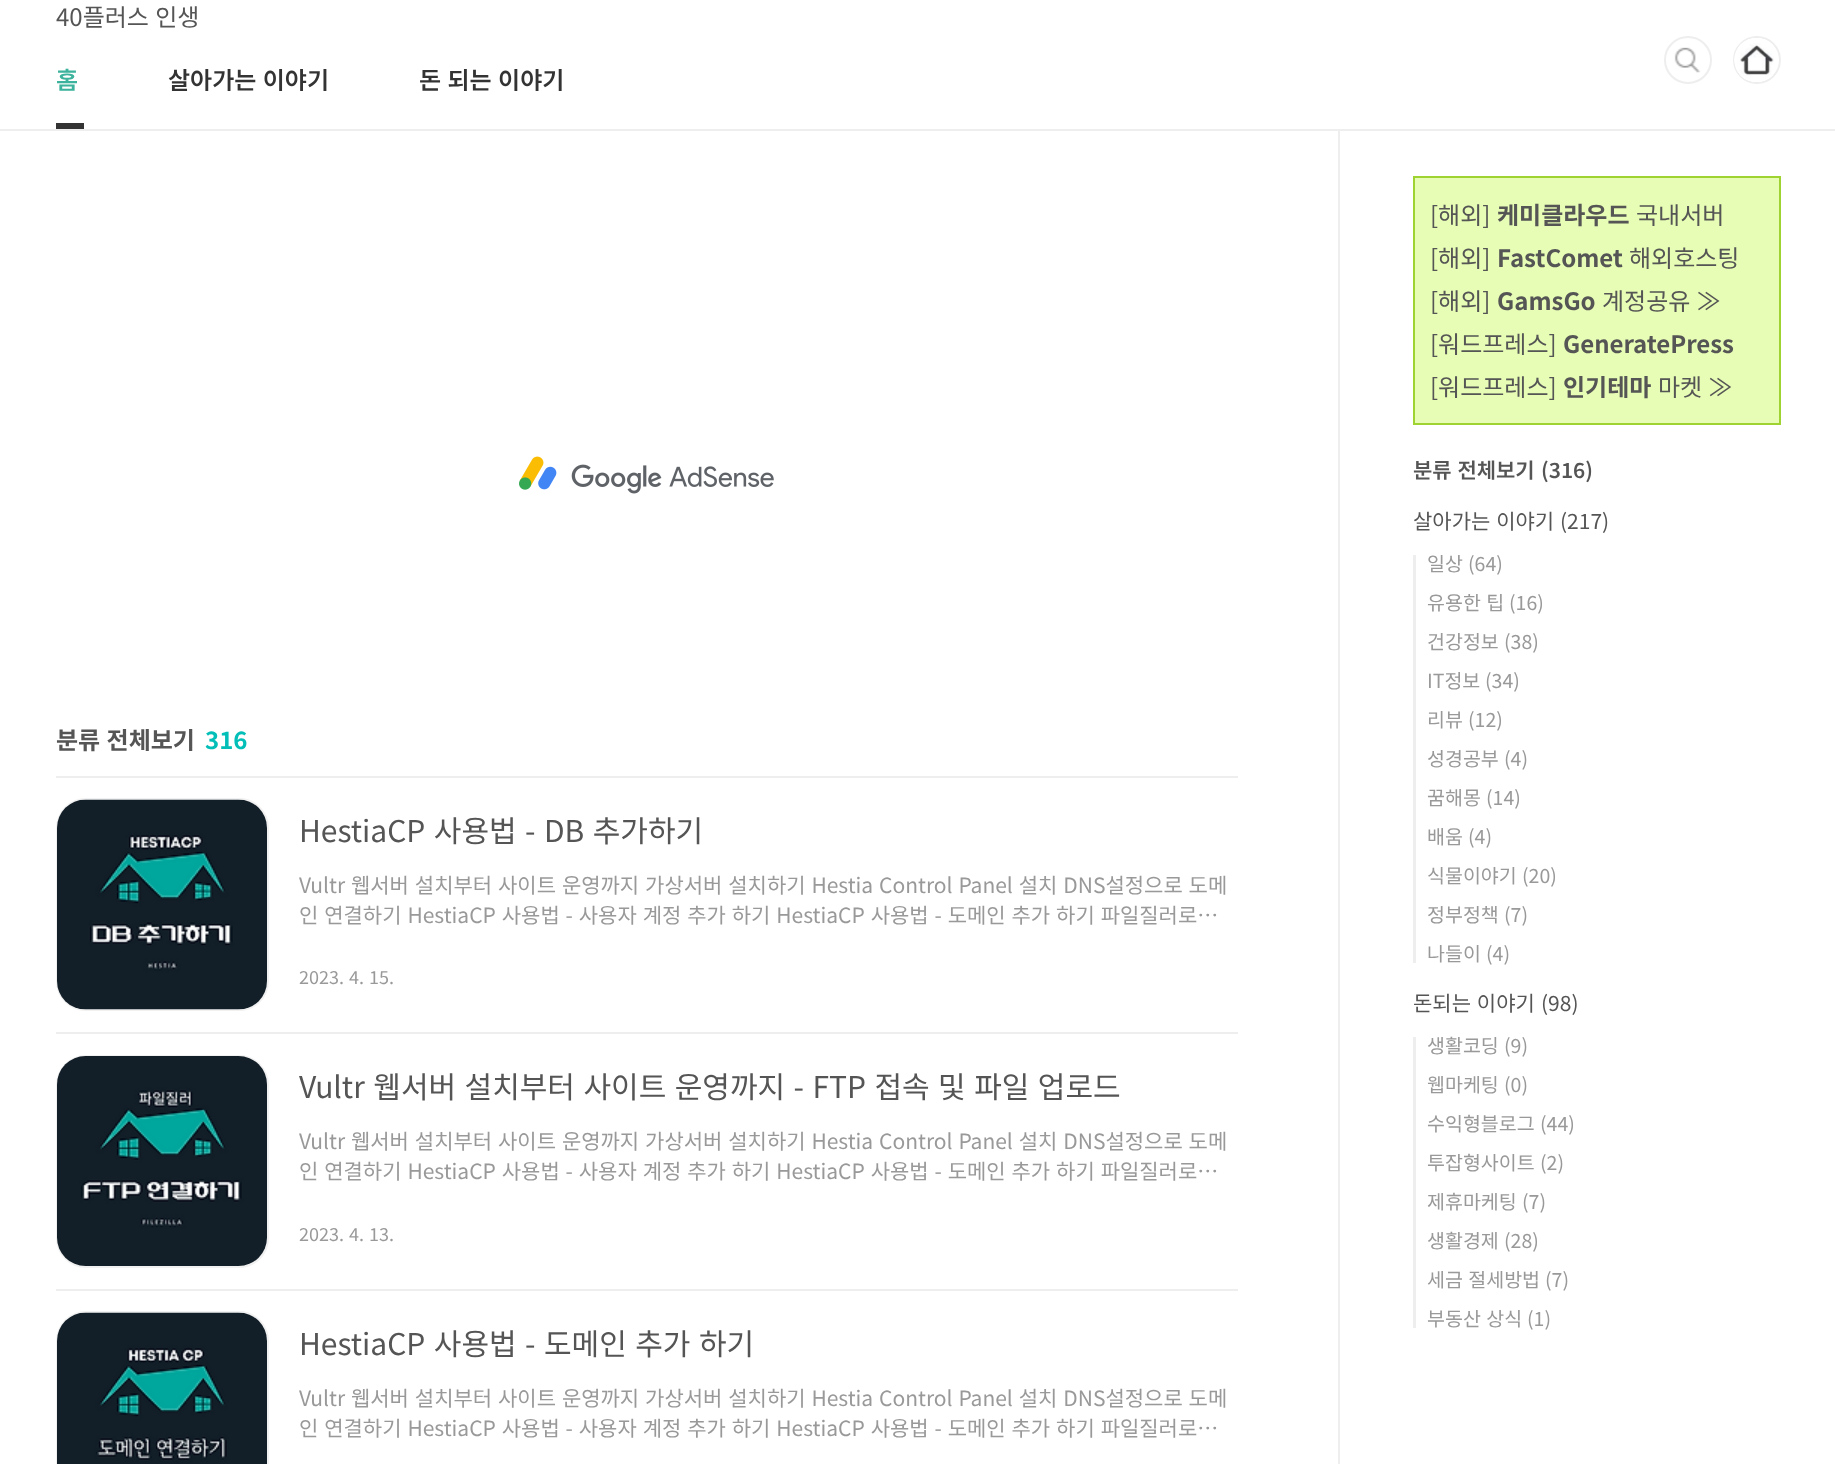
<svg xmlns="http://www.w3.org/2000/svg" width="1835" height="1464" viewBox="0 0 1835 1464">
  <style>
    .t1 { font: 24px Noto Sans KR; fill: #555; }
    .t2 { font: 600 24px Noto Sans KR; fill: #3db39d; }
    .t3 { font: 600 24px Noto Sans KR; fill: #333; }
    .t4 { font: bold 24px Noto Sans KR; fill: #555; }
    .t5 { font: bold 24px Noto Sans KR; fill: #04beb8; }
    .t6 { font: 30px Noto Sans KR; fill: #555; }
    .t7 { font: 21px Noto Sans KR; fill: #999; }
    .t8 { font: 18px Noto Sans KR; fill: #999; }
    .t9 { font: 600 21px Noto Sans KR; fill: #555; }
    .t10 { font: 21px Noto Sans KR; fill: #555; }
    .t11 { font: 19.5px Noto Sans KR; fill: #999; }
  </style>
  <rect width="100%" height="100%" fill="#fff"/>
  <rect x="0" y="129" width="1835" height="2" fill="#eee"/>
  <text x="56" y="26" word-spacing="1" class="t1">40플러스 인생</text>
  <text x="56" y="89" class="t2">홈</text>
  <rect x="56" y="123" width="28" height="6" fill="#333"/>
  <text x="168" y="89" word-spacing="1" class="t3">살아가는 이야기</text>
  <text x="419" y="89" word-spacing="1" class="t3">돈 되는 이야기</text>
  <circle cx="1687.5" cy="60.5" r="21.5" fill="none" stroke="#eee" stroke-width="2"/>
  <circle cx="1688" cy="60" r="24" fill="#fff"/>
  <image x="1674" y="47" width="27" height="26" href="images/1.png"/>
  <circle cx="1688" cy="60" r="23" fill="none" stroke="#eee" stroke-width="2"/>
  <circle cx="1757" cy="60" r="23" fill="none" stroke="#eee" stroke-width="2"/>
  <image x="1734" y="38" width="40" height="44" href="images/2.png"/>
  <image x="519" y="456" width="255" height="38" href="images/3.png"/>
  <rect x="56" y="776" width="1182" height="2" fill="#eee"/>
  <text x="56" y="749" word-spacing="1" class="t4">분류 전체보기</text>
  <text x="205" y="749" class="t5">316</text>
  <rect x="56" y="1032" width="1182" height="2" fill="#eee"/>
  <rect x="57" y="799" width="211" height="211" rx="29" fill="none" stroke="#f1f1f1" stroke-width="2"/>
  <image x="57" y="799" width="210" height="211" href="images/4.png"/>
  <text x="299" y="842" word-spacing="1.75" class="t6">HestiaCP 사용법 - DB 추가하기</text>
  <text x="299" y="893" word-spacing="1.2" class="t7">Vultr 웹서버 설치부터 사이트 운영까지 가상서버 설치하기 Hestia Control Panel 설치 DNS설정으로 도메</text>
  <text x="299" y="923" word-spacing="1.2" class="t7">인 연결하기 HestiaCP 사용법 - 사용자 계정 추가 하기 HestiaCP 사용법 - 도메인 추가 하기 파일질러로…</text>
  <text x="299" y="984" word-spacing="1" class="t8">2023. 4. 15.</text>
  <rect x="56" y="1289" width="1182" height="2" fill="#eee"/>
  <rect x="57" y="1056" width="211" height="211" rx="29" fill="none" stroke="#f1f1f1" stroke-width="2"/>
  <image x="57" y="1056" width="210" height="210" href="images/5.png"/>
  <text x="299" y="1098" word-spacing="1.75" class="t6">Vultr 웹서버 설치부터 사이트 운영까지 - FTP 접속 및 파일 업로드</text>
  <text x="299" y="1149" word-spacing="1.2" class="t7">Vultr 웹서버 설치부터 사이트 운영까지 가상서버 설치하기 Hestia Control Panel 설치 DNS설정으로 도메</text>
  <text x="299" y="1179" word-spacing="1.2" class="t7">인 연결하기 HestiaCP 사용법 - 사용자 계정 추가 하기 HestiaCP 사용법 - 도메인 추가 하기 파일질러로…</text>
  <text x="299" y="1241" word-spacing="1" class="t8">2023. 4. 13.</text>
  <rect x="57" y="1312" width="211" height="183" rx="29" fill="none" stroke="#f1f1f1" stroke-width="2"/>
  <image x="57" y="1312" width="210" height="152" href="images/6.png"/>
  <text x="299" y="1355" word-spacing="1.75" class="t6">HestiaCP 사용법 - 도메인 추가 하기</text>
  <text x="299" y="1406" word-spacing="1.2" class="t7">Vultr 웹서버 설치부터 사이트 운영까지 가상서버 설치하기 Hestia Control Panel 설치 DNS설정으로 도메</text>
  <text x="299" y="1436" word-spacing="1.2" class="t7">인 연결하기 HestiaCP 사용법 - 사용자 계정 추가 하기 HestiaCP 사용법 - 도메인 추가 하기 파일질러로…</text>
  <rect x="1338" y="131" width="2" height="1333" fill="#eee"/>
  <rect x="1414" y="177" width="366" height="247" fill="#e7fdb5" stroke="#9fd331" stroke-width="2"/>
  <text x="1430" y="224" class="t1">[해외]</text>
  <text x="1497" y="224" class="t4">케미클라우드</text>
  <text x="1636" y="224" class="t1">국내서버</text>
  <text x="1430" y="267" class="t1">[해외]</text>
  <text x="1497" y="267" class="t4">FastComet</text>
  <text x="1629" y="267" class="t1">해외호스팅</text>
  <text x="1430" y="310" class="t1">[해외]</text>
  <text x="1497" y="310" class="t4">GamsGo</text>
  <text x="1602" y="310" word-spacing="1" class="t1">계정공유 ≫</text>
  <text x="1430" y="353" class="t1">[워드프레스]</text>
  <text x="1563" y="353" class="t4">GeneratePress</text>
  <text x="1430" y="396" class="t1">[워드프레스]</text>
  <text x="1563" y="396" class="t4">인기테마</text>
  <text x="1658" y="396" word-spacing="1" class="t1">마켓 ≫</text>
  <text x="1413" y="478" word-spacing="1" class="t9">분류 전체보기</text>
  <text x="1541" y="478" class="t9">(316)</text>
  <text x="1413" y="529" word-spacing="1.2" class="t10">살아가는 이야기</text>
  <text x="1560" y="529" class="t10">(217)</text>
  <rect x="1413" y="555" width="3" height="408" fill="#eee"/>
  <text x="1427" y="571" class="t11">일상</text>
  <text x="1468" y="571" class="t11">(64)</text>
  <text x="1427" y="610" word-spacing="1" class="t11">유용한 팁</text>
  <text x="1509" y="610" class="t11">(16)</text>
  <text x="1427" y="649" class="t11">건강정보</text>
  <text x="1504" y="649" class="t11">(38)</text>
  <text x="1427" y="688" class="t11">IT정보</text>
  <text x="1485" y="688" class="t11">(34)</text>
  <text x="1427" y="727" class="t11">리뷰</text>
  <text x="1468" y="727" class="t11">(12)</text>
  <text x="1427" y="766" class="t11">성경공부</text>
  <text x="1504" y="766" class="t11">(4)</text>
  <text x="1427" y="805" class="t11">꿈해몽</text>
  <text x="1486" y="805" class="t11">(14)</text>
  <text x="1427" y="844" class="t11">배움</text>
  <text x="1468" y="844" class="t11">(4)</text>
  <text x="1427" y="883" class="t11">식물이야기</text>
  <text x="1522" y="883" class="t11">(20)</text>
  <text x="1427" y="922" class="t11">정부정책</text>
  <text x="1504" y="922" class="t11">(7)</text>
  <text x="1427" y="961" class="t11">나들이</text>
  <text x="1486" y="961" class="t11">(4)</text>
  <text x="1413" y="1011" word-spacing="1.2" class="t10">돈되는 이야기</text>
  <text x="1541" y="1011" class="t10">(98)</text>
  <rect x="1413" y="1037" width="3" height="291" fill="#eee"/>
  <text x="1427" y="1053" class="t11">생활코딩</text>
  <text x="1504" y="1053" class="t11">(9)</text>
  <text x="1427" y="1092" class="t11">웹마케팅</text>
  <text x="1504" y="1092" class="t11">(0)</text>
  <text x="1427" y="1131" class="t11">수익형블로그</text>
  <text x="1540" y="1131" class="t11">(44)</text>
  <text x="1427" y="1170" class="t11">투잡형사이트</text>
  <text x="1540" y="1170" class="t11">(2)</text>
  <text x="1427" y="1209" class="t11">제휴마케팅</text>
  <text x="1522" y="1209" class="t11">(7)</text>
  <text x="1427" y="1248" class="t11">생활경제</text>
  <text x="1504" y="1248" class="t11">(28)</text>
  <text x="1427" y="1287" word-spacing="1" class="t11">세금 절세방법</text>
  <text x="1545" y="1287" class="t11">(7)</text>
  <text x="1427" y="1326" word-spacing="1" class="t11">부동산 상식</text>
  <text x="1527" y="1326" class="t11">(1)</text>
</svg>
